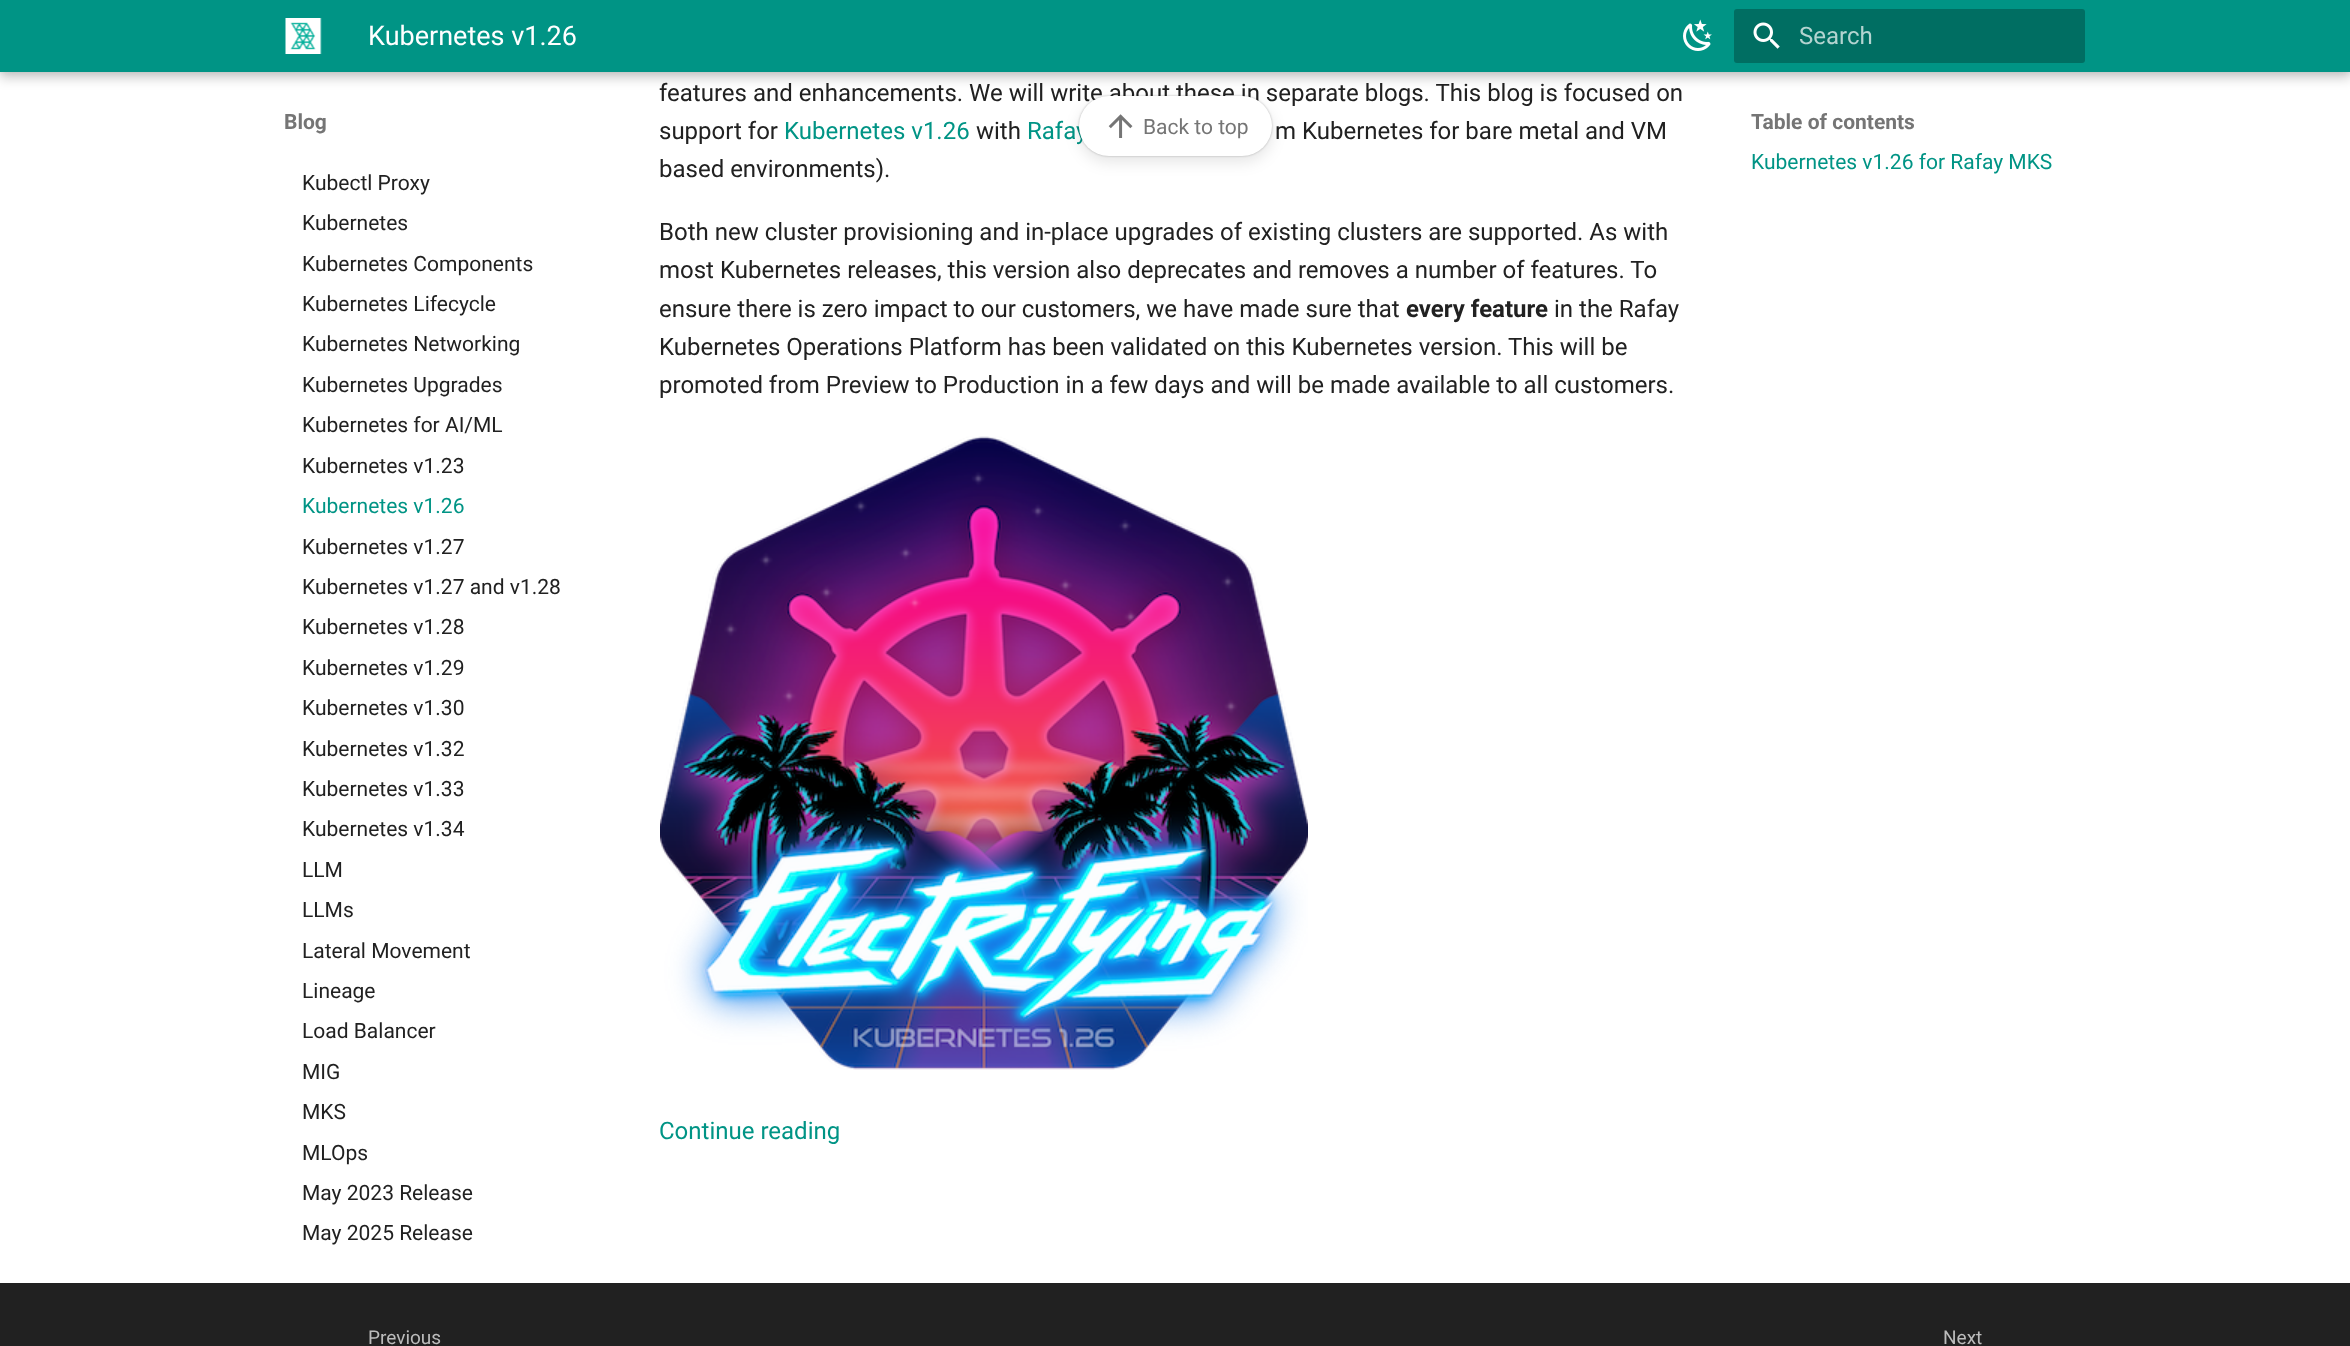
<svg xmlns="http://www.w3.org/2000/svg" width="2350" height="1346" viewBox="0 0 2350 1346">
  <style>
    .t1 { font: 24px Roboto; fill: #212121; }
    .t2 { font: 24px Roboto; fill: #009485; }
    .t3 { font: 27px Roboto; fill: #fff; }
    .t4 { font: 24px Roboto; fill: #b3d4d0; }
    .t5 { font: bold 21px Roboto; fill: #757575; }
    .t6 { font: 21px Roboto; fill: #212121; }
    .t7 { font: 21px Roboto; fill: #009485; }
    .t8 { font: bold 24px Roboto; fill: #212121; }
    .t9 { font: 21px Roboto; fill: #757575; }
    .t10 { font: 19px Roboto; fill: #bcbcbc; }
  </style>
  <defs>
    <clipPath id="clip1"><rect x="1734" y="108" width="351" height="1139"/></clipPath>
    <clipPath id="clip2"><path d="M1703 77H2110V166H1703ZM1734 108H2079V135H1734Z" clip-rule="evenodd"/></clipPath>
  </defs>
  <rect width="100%" height="100%" fill="#fff"/>
  <text x="659" y="101" class="t1">features and enhancements. We will write about these in separate blogs. This blog is focused on</text>
  <text x="1027" y="139" class="t2">Rafay</text>
  <rect x="1079" y="96" width="193" height="60" rx="30" fill="#00000040" filter="blur(1px)"/>
  <rect x="1079" y="102" width="193" height="60" rx="30" fill="#0000001a" filter="blur(7.5px)"/>
  <rect x="1079" y="96" width="193" height="60" rx="30" fill="#fff"/>
  <rect x="0" y="6" width="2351" height="72" fill="#00000033" filter="blur(6px)"/>
  <rect x="0" y="0" width="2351" height="72" fill="#0000001a" filter="blur(3px)"/>
  <rect x="0" y="0" width="2350" height="72" fill="#009485"/>
  <image x="285" y="18" width="37" height="36" href="images/1.png"/>
  <text x="368" y="45" class="t3">Kubernetes v1.26</text>
  <image x="1683" y="19" width="29" height="32" href="images/2.png"/>
  <rect x="1734" y="9" width="351" height="54" rx="3" fill="#006e62"/>
  <image x="1753" y="22" width="27" height="27" href="images/3.png"/>
  <text x="1799" y="44" class="t4">Search</text>
  <text x="284" y="129" class="t5">Blog</text>
  <text x="302" y="190" class="t6">Kubectl Proxy</text>
  <text x="302" y="230" class="t6">Kubernetes</text>
  <text x="302" y="271" class="t6">Kubernetes Components</text>
  <text x="302" y="311" class="t6">Kubernetes Lifecycle</text>
  <text x="302" y="351" class="t6">Kubernetes Networking</text>
  <text x="302" y="392" class="t6">Kubernetes Upgrades</text>
  <text x="302" y="432" class="t6">Kubernetes for AI/ML</text>
  <text x="302" y="473" class="t6">Kubernetes v1.23</text>
  <text x="302" y="513" class="t7">Kubernetes v1.26</text>
  <text x="302" y="554" class="t6">Kubernetes v1.27</text>
  <text x="302" y="594" class="t6">Kubernetes v1.27 and v1.28</text>
  <text x="302" y="634" class="t6">Kubernetes v1.28</text>
  <text x="302" y="675" class="t6">Kubernetes v1.29</text>
  <text x="302" y="715" class="t6">Kubernetes v1.30</text>
  <text x="302" y="756" class="t6">Kubernetes v1.32</text>
  <text x="302" y="796" class="t6">Kubernetes v1.33</text>
  <text x="302" y="836" class="t6">Kubernetes v1.34</text>
  <text x="302" y="877" class="t6">LLM</text>
  <text x="302" y="917" class="t6">LLMs</text>
  <text x="302" y="958" class="t6">Lateral Movement</text>
  <text x="302" y="998" class="t6">Lineage</text>
  <text x="302" y="1038" class="t6">Load Balancer</text>
  <text x="302" y="1079" class="t6">MIG</text>
  <text x="302" y="1119" class="t6">MKS</text>
  <text x="302" y="1160" class="t6">MLOps</text>
  <text x="302" y="1200" class="t6">May 2023 Release</text>
  <text x="302" y="1240" class="t6">May 2025 Release</text>
  <text x="659" y="139" class="t1">support for</text>
  <text x="784" y="139" class="t2">Kubernetes v1.26</text>
  <text x="976" y="139" class="t1">with</text>
  <text x="1275" y="139" class="t1">m Kubernetes for bare metal and VM</text>
  <text x="659" y="177" class="t1">based environments).</text>
  <text x="659" y="240" class="t1">Both new cluster provisioning and in-place upgrades of existing clusters are supported. As with</text>
  <text x="659" y="278" class="t1">most Kubernetes releases, this version also deprecates and removes a number of features. To</text>
  <text x="659" y="317" class="t1">ensure there is zero impact to our customers, we have made sure that</text>
  <text x="1406" y="317" class="t8">every feature</text>
  <text x="1554" y="317" class="t1">in the Rafay</text>
  <text x="659" y="355" class="t1">Kubernetes Operations Platform has been validated on this Kubernetes version. This will be</text>
  <text x="659" y="393" class="t1">promoted from Preview to Production in a few days and will be made available to all customers.</text>
  <image x="660" y="436" width="648" height="634" href="images/4.png"/>
  <text x="659" y="1139" class="t2">Continue reading</text>
  <g clip-path="url(#clip1)">
    <g clip-path="url(#clip2)">
      <rect x="1722" y="96" width="369" height="51" fill="#fff" filter="blur(6px)"/>
    </g>
  </g>
  <text x="1751" y="129" class="t5">Table of contents</text>
  <text x="1751" y="169" class="t7">Kubernetes v1.26 for Rafay MKS</text>
  <image x="1108" y="114" width="25" height="24" href="images/5.png"/>
  <text x="1143" y="134" class="t9">Back to top</text>
  <rect x="0" y="1283" width="2350" height="63" fill="#212121"/>
  <text x="368" y="1344" class="t10">Previous</text>
  <text x="1943" y="1344" class="t10">Next</text>
</svg>
